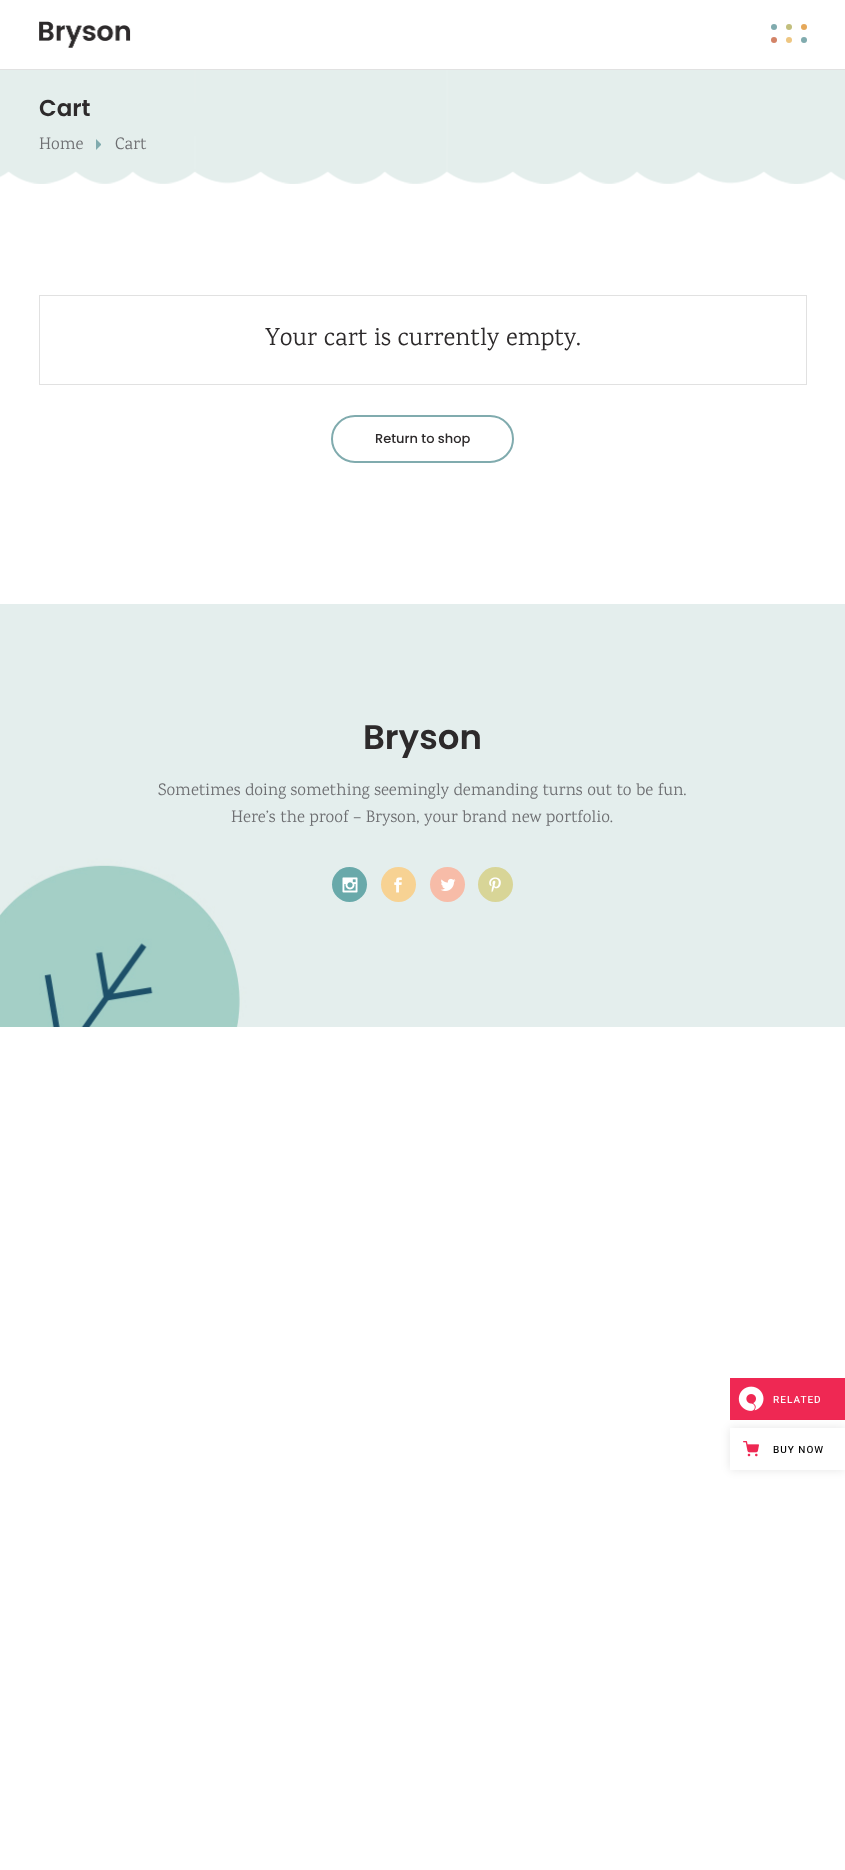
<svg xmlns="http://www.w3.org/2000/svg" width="845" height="1870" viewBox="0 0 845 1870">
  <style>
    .t1 { font: 600 23px Poppins; fill: #2d2a2b; }
    .t2 { font: 17px Karma; fill: #6d6e71; }
    .t3 { font: 25px Karma; fill: #2d2a2b; }
    .t4 { font: 500 13px Poppins; fill: #2d2a2b; }
    .t5 { font: 600 34px Poppins; fill: #2d2a2b; }
    .t6 { font: 500 10px Heebo; letter-spacing: 1px; fill: #fff; }
    .t7 { font: 500 10px Heebo; letter-spacing: 1px; fill: #000; }
  </style>
  <defs>
    <clipPath id="clip1"><path d="M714 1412H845V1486H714ZM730 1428H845V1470H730Z" clip-rule="evenodd"/></clipPath>
  </defs>
  <rect width="100%" height="100%" fill="#fff"/>
  <rect x="0" y="69" width="845" height="1" fill="#e1e1e1"/>
  <image x="39" y="21" width="92" height="27" href="images/1.png"/>
  <circle cx="774" cy="27" r="3" fill="#80abae"/>
  <circle cx="789" cy="27" r="3" fill="#c2bf7d"/>
  <circle cx="804" cy="27" r="3" fill="#e5a85a"/>
  <circle cx="774" cy="40" r="3" fill="#d38367"/>
  <circle cx="789" cy="40" r="3" fill="#eec681"/>
  <circle cx="804" cy="40" r="3" fill="#80abae"/>
  <image x="0" y="70" width="845" height="114" href="images/2.png"/>
  <text x="39" y="116" class="t1">Cart</text>
  <text x="39" y="149" class="t2">Home</text>
  <path d="M96 150V139L101 144V145Z" fill="#80abae"/>
  <text x="115" y="149" class="t2">Cart</text>
  <rect x="39.5" y="295.5" width="767" height="89" fill="none" stroke="#e1e1e1"/>
  <text x="265" y="345" class="t3">Your cart is currently empty.</text>
  <rect x="332" y="416" width="181" height="46" rx="23" fill="none" stroke="#80abae" stroke-width="2"/>
  <text x="375" y="443" class="t4">Return to shop</text>
  <image x="0" y="604" width="845" height="423" href="images/3.png"/>
  <text x="363" y="749" class="t5">Bryson</text>
  <text x="158" y="795" class="t2">Sometimes doing something seemingly demanding turns out to be fun.</text>
  <text x="231" y="822" class="t2">Here’s the proof – Bryson, your brand new portfolio.</text>
  <circle cx="349.5" cy="884.5" r="17.5" fill="#69a9aa"/>
  <image x="342" y="877" width="16" height="16" href="images/4.png"/>
  <circle cx="398.5" cy="884.5" r="17.5" fill="#f7d293"/>
  <image x="394" y="877" width="8" height="16" href="images/5.png"/>
  <circle cx="447.5" cy="884.5" r="17.5" fill="#f7bca8"/>
  <image x="440" y="878" width="16" height="13" href="images/6.png"/>
  <circle cx="495.5" cy="884.5" r="17.5" fill="#d8d597"/>
  <image x="489" y="877" width="12" height="16" href="images/7.png"/>
  <rect x="730" y="1378" width="115" height="42" fill="#ef2853"/>
  <image x="738" y="1386" width="26" height="25" href="images/8.png"/>
  <text x="773" y="1403" class="t6">RELATED</text>
  <g clip-path="url(#clip1)">
    <rect x="730" y="1428" width="115" height="42" fill="#0000001a" filter="blur(5px)"/>
  </g>
  <image x="743" y="1441" width="16" height="16" href="images/9.png"/>
  <text x="773" y="1453" class="t7">BUY NOW</text>
</svg>
